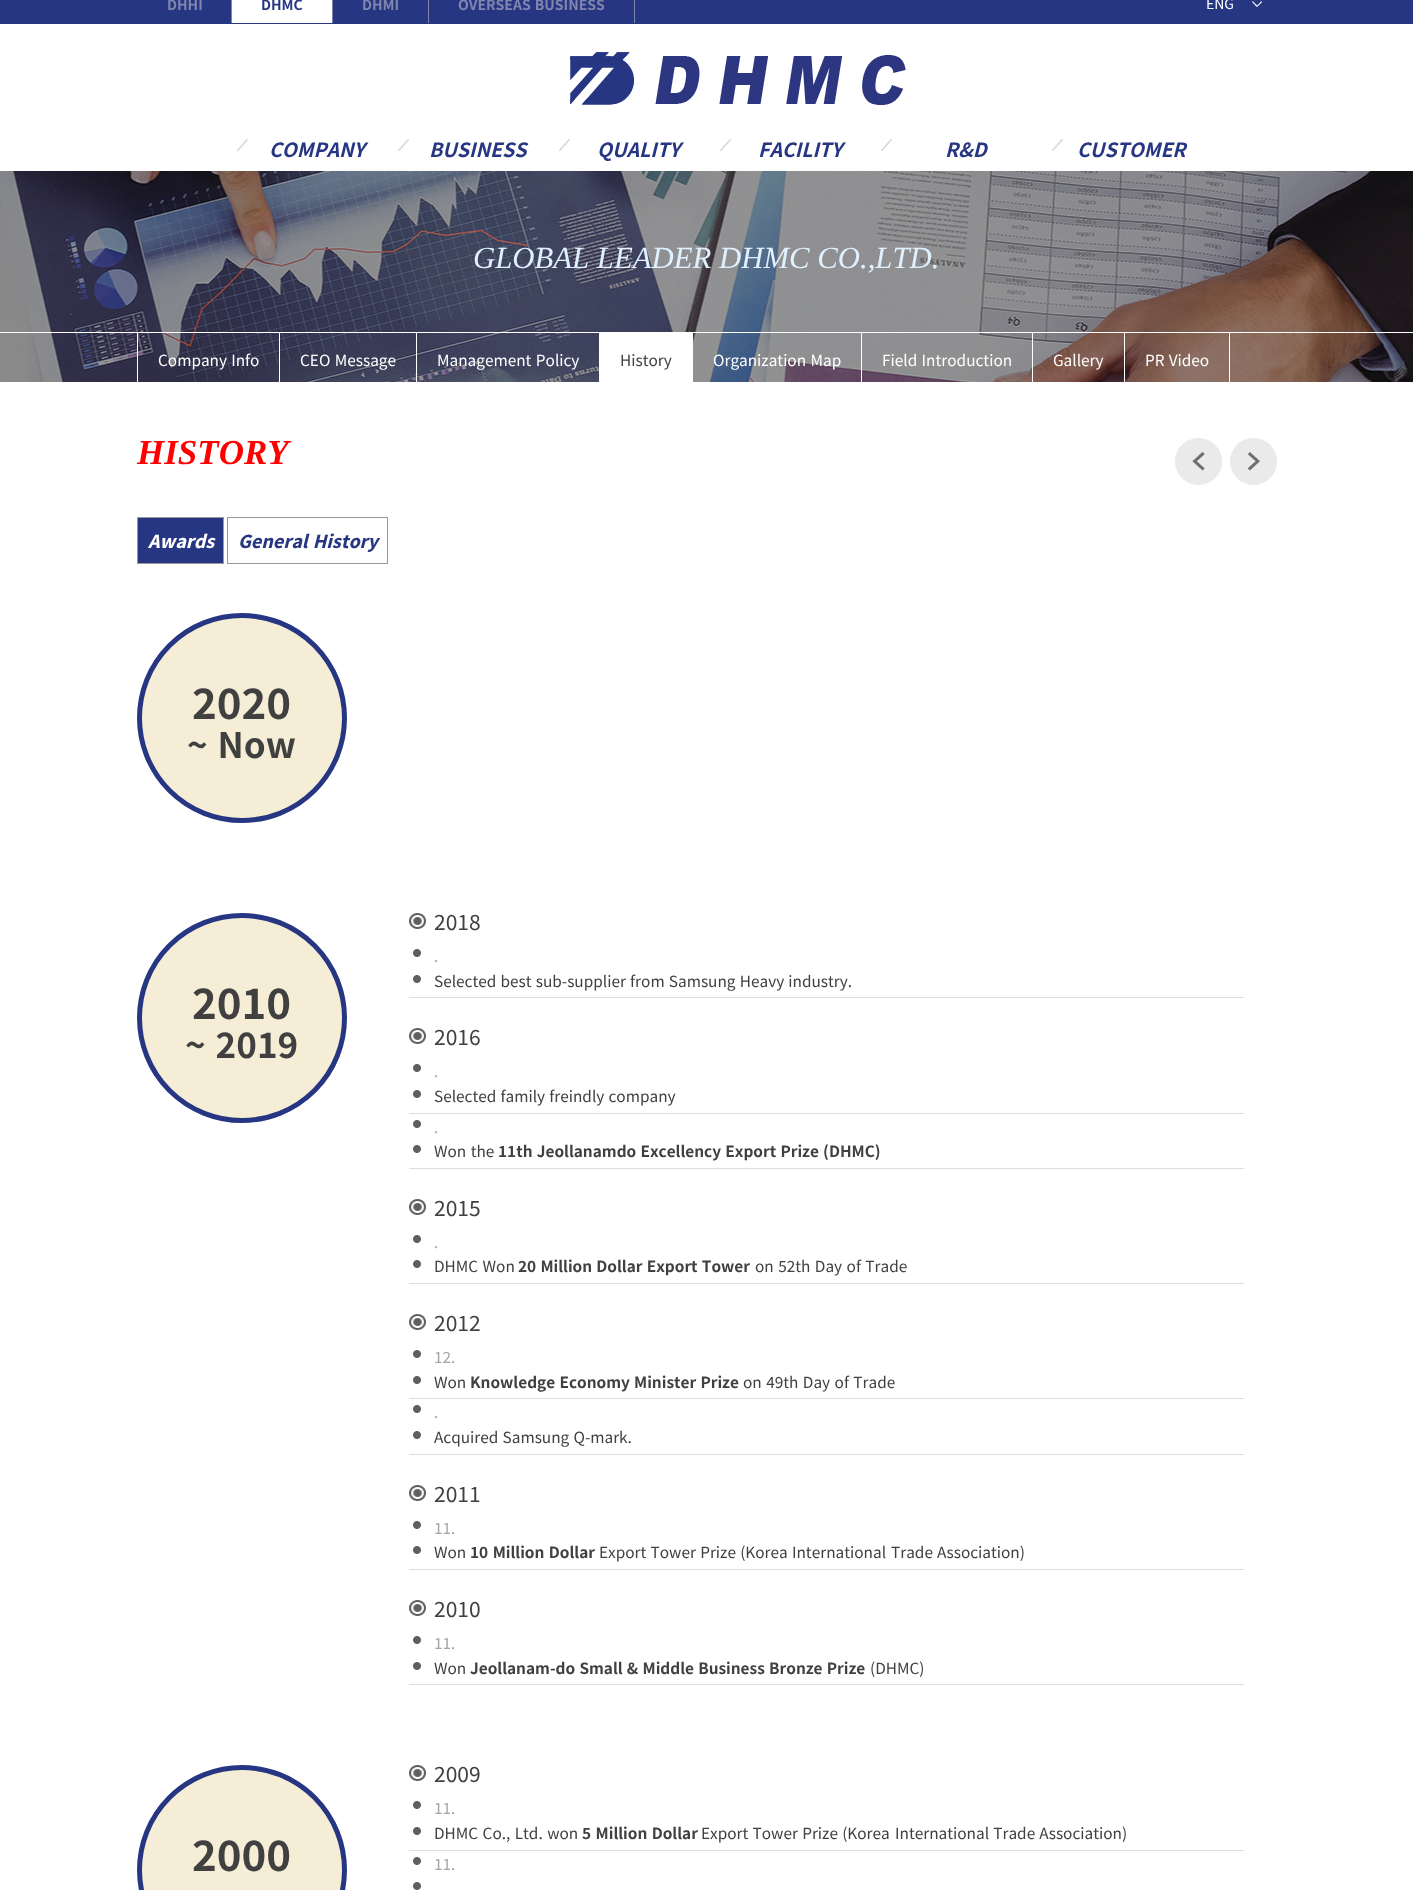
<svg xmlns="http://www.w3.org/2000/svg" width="1413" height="1890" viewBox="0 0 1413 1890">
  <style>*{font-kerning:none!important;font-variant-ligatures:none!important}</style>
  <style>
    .t1 { font: bold 14px Noto Sans KR; fill: #8186ae; }
    .t2 { font: bold 14px Noto Sans KR; fill: #263683; }
    .t3 { font: 14px Noto Sans KR; fill: #fff; }
    .t4 { font: italic bold 19.5px Noto Sans KR; fill: #263683; }
    .t5 { font: italic 30.75px Liberation Serif; fill: #dff0ff; }
    .t6 { font: 15.4px Noto Sans KR; fill: #fff; }
    .t7 { font: 15.4px Noto Sans KR; fill: #404040; }
    .t8 { font: italic bold 35px Liberation Serif; fill: #f00; }
    .t9 { font: italic 800 17.75px Noto Sans KR; fill: #fff; }
    .t10 { font: italic 800 17.75px Noto Sans KR; fill: #263683; }
    .t11 { font: bold 42px Noto Sans KR; fill: #404040; }
    .t12 { font: bold 35px Noto Sans KR; fill: #404040; }
    .t13 { font: 21px Noto Sans KR; fill: #404040; }
    .t14 { font: 15.4px Noto Sans KR; fill: #a6a6a6; }
    .t15 { font: bold 15.4px Noto Sans KR; fill: #404040; }
  </style>
  <rect width="100%" height="100%" fill="#fff"/>
  <rect x="0" y="0" width="1413" height="24" fill="#263683"/>
  <rect x="231" y="0" width="1" height="23" fill="#8186ae"/>
  <text x="167" y="10" class="t1">DHHI</text>
  <rect x="232" y="0" width="100" height="23" fill="#fff"/>
  <rect x="332" y="0" width="1" height="23" fill="#8186ae"/>
  <text x="261" y="10" class="t2">DHMC</text>
  <rect x="428" y="0" width="1" height="23" fill="#8186ae"/>
  <text x="362" y="10" class="t1">DHMI</text>
  <rect x="634" y="0" width="1" height="23" fill="#8186ae"/>
  <text x="458" y="10" word-spacing="1" class="t1">OVERSEAS BUSINESS</text>
  <image x="1252" y="1" width="10" height="6" href="images/1.png"/>
  <text x="1206" y="9" class="t3">ENG</text>
  <image x="570" y="52" width="336" height="53" href="images/2.png"/>
  <image x="237" y="139" width="11" height="12" href="images/3.png"/>
  <text x="269" y="157" class="t4">COMPANY</text>
  <image x="398" y="139" width="11" height="12" href="images/4.png"/>
  <text x="429" y="157" class="t4">BUSINESS</text>
  <image x="559" y="139" width="11" height="12" href="images/3.png"/>
  <text x="597" y="157" class="t4">QUALITY</text>
  <image x="720" y="139" width="11" height="12" href="images/4.png"/>
  <text x="758" y="157" class="t4">FACILITY</text>
  <image x="881" y="139" width="11" height="12" href="images/3.png"/>
  <text x="945" y="157" class="t4">R&amp;D</text>
  <image x="1052" y="139" width="11" height="12" href="images/4.png"/>
  <text x="1077" y="157" class="t4">CUSTOMER</text>
  <image x="0" y="171" width="1413" height="211" href="images/5.png"/>
  <text x="473" y="268" class="t5">GLOBAL LEADER DHMC CO.,LTD.</text>
  <rect x="0" y="332" width="1413" height="1" fill="#fff"/>
  <rect x="137" y="333" width="1" height="50" fill="#fff"/>
  <rect x="279" y="333" width="1" height="50" fill="#fff"/>
  <text x="158" y="366" word-spacing="0.75" class="t6">Company Info</text>
  <rect x="416" y="333" width="1" height="50" fill="#fff"/>
  <text x="300" y="366" word-spacing="1" class="t6">CEO Message</text>
  <rect x="599" y="333" width="1" height="50" fill="#fff"/>
  <text x="437" y="366" word-spacing="1" class="t6">Management Policy</text>
  <rect x="692" y="333" width="1" height="50" fill="#fff"/>
  <rect x="600" y="333" width="92" height="49" fill="#fff"/>
  <text x="620" y="366" class="t7">History</text>
  <rect x="861" y="333" width="1" height="50" fill="#fff"/>
  <text x="713" y="366" word-spacing="1" class="t6">Organization Map</text>
  <rect x="1032" y="333" width="1" height="50" fill="#fff"/>
  <text x="882" y="366" word-spacing="1" class="t6">Field Introduction</text>
  <rect x="1124" y="333" width="1" height="50" fill="#fff"/>
  <text x="1053" y="366" class="t6">Gallery</text>
  <rect x="1229" y="333" width="1" height="50" fill="#fff"/>
  <text x="1145" y="366" word-spacing="0.75" class="t6">PR Video</text>
  <text x="137" y="464" class="t8">HISTORY</text>
  <image x="1175" y="438" width="47" height="47" href="images/6.png"/>
  <image x="1230" y="438" width="47" height="47" href="images/7.png"/>
  <rect x="137.5" y="517.5" width="86" height="46" fill="#273683" stroke="#999"/>
  <text x="148" y="548" class="t9">Awards</text>
  <rect x="227.5" y="517.5" width="160" height="46" fill="none" stroke="#999"/>
  <text x="238" y="548" word-spacing="1" class="t10">General History</text>
  <circle cx="242" cy="718" r="102.5" fill="#f6edd6" stroke="#263683" stroke-width="5"/>
  <text x="192" y="719" class="t11">2020</text>
  <text x="187" y="758" word-spacing="2" class="t12">~ Now</text>
  <image x="409" y="913" width="17" height="16" href="images/8.png"/>
  <text x="434" y="930" class="t13">2018</text>
  <image x="413" y="949" width="8" height="8" href="images/9.png"/>
  <text x="434" y="962" class="t14">.</text>
  <image x="413" y="975" width="8" height="8" href="images/9.png"/>
  <rect x="409" y="997" width="835" height="1" fill="#ddd"/>
  <text x="434" y="987" word-spacing="0.75" class="t7">Selected best sub-supplier from Samsung Heavy industry.</text>
  <circle cx="242" cy="1018" r="102.5" fill="#f6edd6" stroke="#263683" stroke-width="5"/>
  <text x="192" y="1019" class="t11">2010</text>
  <text x="185" y="1058" word-spacing="2" class="t12">~ 2019</text>
  <image x="409" y="1028" width="17" height="16" href="images/8.png"/>
  <text x="434" y="1045" class="t13">2016</text>
  <image x="413" y="1064" width="8" height="8" href="images/9.png"/>
  <text x="434" y="1077" class="t14">.</text>
  <image x="413" y="1090" width="8" height="8" href="images/9.png"/>
  <rect x="409" y="1113" width="835" height="1" fill="#ddd"/>
  <text x="434" y="1102" word-spacing="0.75" class="t7">Selected family freindly company</text>
  <image x="413" y="1120" width="8" height="8" href="images/9.png"/>
  <text x="434" y="1133" class="t14">.</text>
  <image x="413" y="1145" width="8" height="8" href="images/9.png"/>
  <rect x="409" y="1168" width="835" height="1" fill="#ddd"/>
  <text x="434" y="1157" word-spacing="1" class="t7">Won the</text>
  <text x="498" y="1157" word-spacing="0.75" class="t15">11th Jeollanamdo Excellency Export Prize (DHMC)</text>
  <image x="409" y="1199" width="17" height="16" href="images/8.png"/>
  <text x="434" y="1216" class="t13">2015</text>
  <image x="413" y="1235" width="8" height="8" href="images/9.png"/>
  <text x="434" y="1248" class="t14">.</text>
  <image x="413" y="1260" width="8" height="8" href="images/9.png"/>
  <rect x="409" y="1283" width="835" height="1" fill="#ddd"/>
  <text x="434" y="1272" word-spacing="1" class="t7">DHMC Won</text>
  <text x="518" y="1272" word-spacing="0.75" class="t15">20 Million Dollar Export Tower</text>
  <text x="755" y="1272" word-spacing="1" class="t7">on 52th Day of Trade</text>
  <image x="409" y="1314" width="17" height="16" href="images/8.png"/>
  <text x="434" y="1331" class="t13">2012</text>
  <image x="413" y="1350" width="8" height="8" href="images/9.png"/>
  <text x="434" y="1363" class="t14">12.</text>
  <image x="413" y="1376" width="8" height="8" href="images/9.png"/>
  <rect x="409" y="1398" width="835" height="1" fill="#ddd"/>
  <text x="434" y="1388" class="t7">Won</text>
  <text x="470" y="1388" word-spacing="0.75" class="t15">Knowledge Economy Minister Prize</text>
  <text x="743" y="1388" word-spacing="1" class="t7">on 49th Day of Trade</text>
  <image x="413" y="1405" width="8" height="8" href="images/9.png"/>
  <text x="434" y="1418" class="t14">.</text>
  <image x="413" y="1431" width="8" height="8" href="images/9.png"/>
  <rect x="409" y="1454" width="835" height="1" fill="#ddd"/>
  <text x="434" y="1443" word-spacing="0.75" class="t7">Acquired Samsung Q-mark.</text>
  <image x="409" y="1485" width="17" height="16" href="images/8.png"/>
  <text x="434" y="1502" class="t13">2011</text>
  <image x="413" y="1521" width="8" height="8" href="images/9.png"/>
  <text x="434" y="1534" class="t14">11.</text>
  <image x="413" y="1546" width="8" height="8" href="images/9.png"/>
  <rect x="409" y="1569" width="835" height="1" fill="#ddd"/>
  <text x="434" y="1558" class="t7">Won</text>
  <text x="470" y="1558" word-spacing="1" class="t15">10 Million Dollar</text>
  <text x="599" y="1558" word-spacing="0.75" class="t7">Export Tower Prize (Korea International</text>
  <text x="891" y="1558" word-spacing="0.75" class="t7">Trade Association)</text>
  <image x="409" y="1600" width="17" height="16" href="images/8.png"/>
  <text x="434" y="1617" class="t13">2010</text>
  <image x="413" y="1636" width="8" height="8" href="images/9.png"/>
  <text x="434" y="1649" class="t14">11.</text>
  <image x="413" y="1662" width="8" height="8" href="images/9.png"/>
  <rect x="409" y="1684" width="835" height="1" fill="#ddd"/>
  <text x="434" y="1674" class="t7">Won</text>
  <text x="470" y="1674" word-spacing="0.75" class="t15">Jeollanam-do Small &amp; Middle Business Bronze Prize</text>
  <text x="870" y="1674" class="t7">(DHMC)</text>
  <circle cx="242" cy="1870" r="102.5" fill="#f6edd6" stroke="#263683" stroke-width="5"/>
  <text x="192" y="1871" class="t11">2000</text>
  <image x="409" y="1765" width="17" height="16" href="images/8.png"/>
  <text x="434" y="1782" class="t13">2009</text>
  <image x="413" y="1801" width="8" height="8" href="images/9.png"/>
  <text x="434" y="1814" class="t14">11.</text>
  <image x="413" y="1827" width="8" height="8" href="images/9.png"/>
  <rect x="409" y="1850" width="835" height="1" fill="#ddd"/>
  <text x="434" y="1839" word-spacing="1" class="t7">DHMC Co., Ltd. won</text>
  <text x="582" y="1839" word-spacing="1" class="t15">5 Million Dollar</text>
  <text x="701" y="1839" word-spacing="0.75" class="t7">Export Tower Prize (Korea</text>
  <text x="895" y="1839" word-spacing="0.75" class="t7">International Trade Association)</text>
  <image x="413" y="1857" width="8" height="8" href="images/9.png"/>
  <text x="434" y="1870" class="t14">11.</text>
  <image x="413" y="1882" width="8" height="8" href="images/9.png"/>
</svg>
